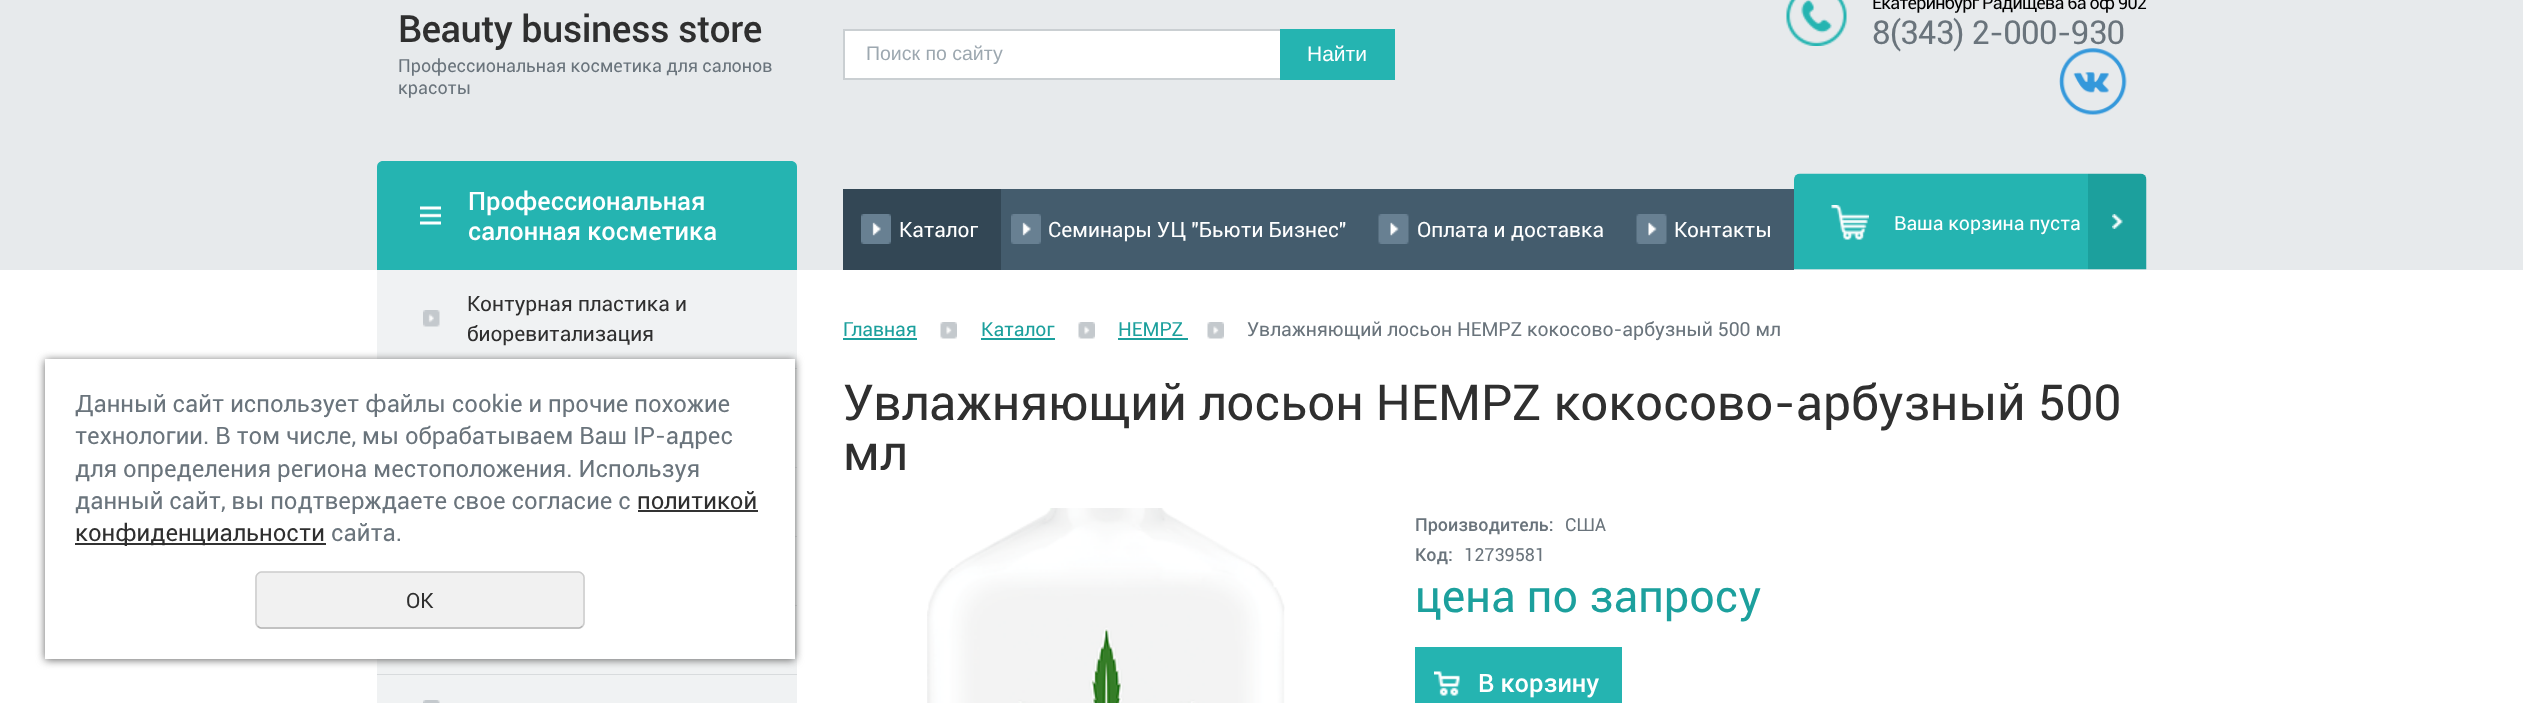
<svg xmlns="http://www.w3.org/2000/svg" width="2523" height="703" viewBox="0 0 2523 703">
  <style>
    .t1 { font: 500 37.5px Roboto; letter-spacing: -0.45px; fill: #2f2f2f; }
    .t2 { font: 18px Roboto; fill: #6a747c; }
    .t3 { font: 19.5px Liberation Sans; fill: #9da8b0; }
    .t4 { font: 21px Liberation Sans; fill: #fff; }
    .t5 { font: 18px Roboto; letter-spacing: -0.75px; fill: #000; }
    .t6 { font: 33px Roboto; letter-spacing: -0.75px; fill: #6a747c; }
    .t7 { font: 500 25.5px Roboto; fill: #fff; }
    .t8 { font: 21px Roboto; fill: #fff; }
    .t9 { font: 19.5px Roboto; fill: #fff; }
    .t10 { font: 21px Roboto; fill: #2f2f2f; }
    .t11 { font: 19.5px Roboto; fill: #1ca09d; }
    .t12 { font: 19.5px Roboto; fill: #6a747c; }
    .t13 { font: 49.5px Roboto; fill: #2f2f2f; }
    .t14 { font: 500 18px Roboto; fill: #6a747c; }
    .t15 { font: 45px Roboto; fill: #1ca09d; }
    .t16 { font: 24px Roboto; fill: #6a747c; }
    .t17 { font: 24px Roboto; fill: #2f2f2f; }
  </style>
  <rect width="100%" height="100%" fill="#fff"/>
  <rect x="0" y="0" width="2523" height="270" fill="#e7eaec"/>
  <text x="398" y="42" class="t1">Beauty business store</text>
  <text x="398" y="72" class="t2">Профессиональная косметика для салонов</text>
  <text x="398" y="94" class="t2">красоты</text>
  <rect x="845" y="31" width="435" height="47" fill="#fff"/>
  <rect x="843" y="29" width="437" height="2" fill="#cacfd2"/>
  <rect x="843" y="78" width="437" height="2" fill="#cacfd2"/>
  <rect x="843" y="29" width="2" height="51" fill="#cacfd2"/>
  <text x="866" y="60" class="t3">Поиск по сайту</text>
  <rect x="1280" y="29" width="115" height="51" fill="#25b4b1"/>
  <text x="1307" y="61" class="t4">Найти</text>
  <image x="1786" y="0" width="61" height="46" href="images/1.png"/>
  <text x="1872" y="9" class="t5">Екатеринбург Радищева 6а оф 902</text>
  <text x="1872" y="44" class="t6">8(343) 2-000-930</text>
  <image x="2059" y="48" width="68" height="67" href="images/2.png"/>
  <path d="M383 161H791C794.5 161 797 163.5 797 167V270H377V167C377 163.5 379.5 161 383 161Z" fill="#25b4b1"/>
  <image x="420" y="206" width="21" height="19" href="images/3.png"/>
  <text x="468" y="210" class="t7">Профессиональная</text>
  <text x="468" y="240" class="t7">салонная косметика</text>
  <rect x="1001" y="189" width="793" height="81" fill="#445c6d"/>
  <rect x="843" y="189" width="158" height="81" fill="#334755"/>
  <image x="861" y="214" width="30" height="30" href="images/4.png"/>
  <text x="899" y="237" class="t8">Каталог</text>
  <image x="1011" y="214" width="30" height="30" href="images/5.png"/>
  <text x="1048" y="237" class="t8">Семинары УЦ "Бьюти Бизнес"</text>
  <image x="1378" y="214" width="31" height="30" href="images/6.png"/>
  <text x="1417" y="237" class="t8">Оплата и доставка</text>
  <image x="1636" y="214" width="31" height="30" href="images/7.png"/>
  <text x="1674" y="237" class="t8">Контакты</text>
  <image x="1794" y="173" width="353" height="97" href="images/8.png"/>
  <text x="1894" y="230" class="t9">Ваша корзина пуста</text>
  <rect x="377" y="270" width="420" height="98" fill="#f0f2f3"/>
  <image x="423" y="310" width="17" height="17" href="images/9.png"/>
  <rect x="795" y="368" width="2" height="1" fill="#d8dbdd"/>
  <text x="467" y="311" class="t10">Контурная пластика и</text>
  <text x="467" y="341" class="t10">биоревитализация</text>
  <rect x="795" y="369" width="2" height="98" fill="#f0f2f3"/>
  <rect x="795" y="467" width="2" height="1" fill="#d8dbdd"/>
  <rect x="795" y="468" width="2" height="68" fill="#f0f2f3"/>
  <rect x="795" y="536" width="2" height="1" fill="#d8dbdd"/>
  <rect x="795" y="537" width="2" height="68" fill="#f0f2f3"/>
  <rect x="795" y="605" width="2" height="1" fill="#d8dbdd"/>
  <rect x="377" y="606" width="420" height="68" fill="#f0f2f3"/>
  <rect x="377" y="674" width="420" height="1" fill="#d8dbdd"/>
  <rect x="377" y="675" width="420" height="28" fill="#f0f2f3"/>
  <image x="423" y="700" width="17" height="3" href="images/10.png"/>
  <text x="843" y="336" class="t11">Главная</text>
  <rect x="843" y="338" width="74" height="2" fill="#1ca09d"/>
  <image x="940" y="322" width="17" height="17" href="images/11.png"/>
  <text x="981" y="336" class="t11">Каталог</text>
  <rect x="981" y="338" width="74" height="2" fill="#1ca09d"/>
  <image x="1078" y="322" width="17" height="17" href="images/11.png"/>
  <text x="1118" y="336" class="t11">HEMPZ</text>
  <rect x="1118" y="338" width="70" height="2" fill="#1ca09d"/>
  <image x="1207" y="322" width="17" height="17" href="images/11.png"/>
  <text x="1247" y="336" class="t12">Увлажняющий лосьон HEMPZ кокосово-арбузный 500 мл</text>
  <text x="843" y="420" class="t13">Увлажняющий лосьон HEMPZ кокосово-арбузный 500</text>
  <text x="843" y="470" class="t13">мл</text>
  <image x="927" y="508" width="358" height="195" href="images/12.png"/>
  <text x="1415" y="531" class="t14">Производитель:</text>
  <text x="1565" y="531" class="t2">США</text>
  <text x="1415" y="561" class="t14">Код:</text>
  <text x="1464" y="561" class="t2">12739581</text>
  <text x="1415" y="612" class="t15">цена по запросу</text>
  <rect x="1415" y="647" width="207" height="56" fill="#25b4b1"/>
  <image x="1434" y="671" width="26" height="25" href="images/13.png"/>
  <text x="1478" y="692" class="t7">В корзину</text>
  <rect x="45" y="360" width="750" height="300" fill="#666" filter="blur(4px)"/>
  <rect x="45" y="359" width="750" height="300" fill="#fff"/>
  <text x="75" y="412" class="t16">Данный сайт использует файлы cookie и прочие похожие</text>
  <text x="75" y="444" class="t16">технологии. В том числе, мы обрабатываем Ваш IP-адрес</text>
  <text x="75" y="477" class="t16">для определения региона местоположения. Используя</text>
  <text x="75" y="509" class="t16">данный сайт, вы подтверждаете свое согласие с</text>
  <text x="637" y="509" class="t17">политикой</text>
  <rect x="638" y="510" width="120" height="2" fill="#333"/>
  <rect x="75" y="543" width="251" height="2" fill="#333"/>
  <text x="75" y="541" class="t17">конфиденциальности</text>
  <text x="331" y="541" class="t16">сайта.</text>
  <rect x="255" y="572" width="330" height="57" rx="6" fill="#f1f1f1"/>
  <path d="M582.5 626C581.5 627 580.5 628 579 628H261C259.5 628 258.5 627 257.5 626" fill="none" stroke="#b3b3b3" stroke-width="1.5"/>
  <path d="M257.5 626C256.5 625 256 624 256 622.5V577.5C256 576 256.5 575 257.5 574C258.5 573 259.5 572 261 572H579C580.5 572 581.5 573 582.5 574C583.5 575 584 576 584 577.5V622.5C584 624 583.5 625 582.5 626" fill="none" stroke="#ccc" stroke-width="1.5"/>
  <text x="406" y="608" class="t10">OK</text>
</svg>
